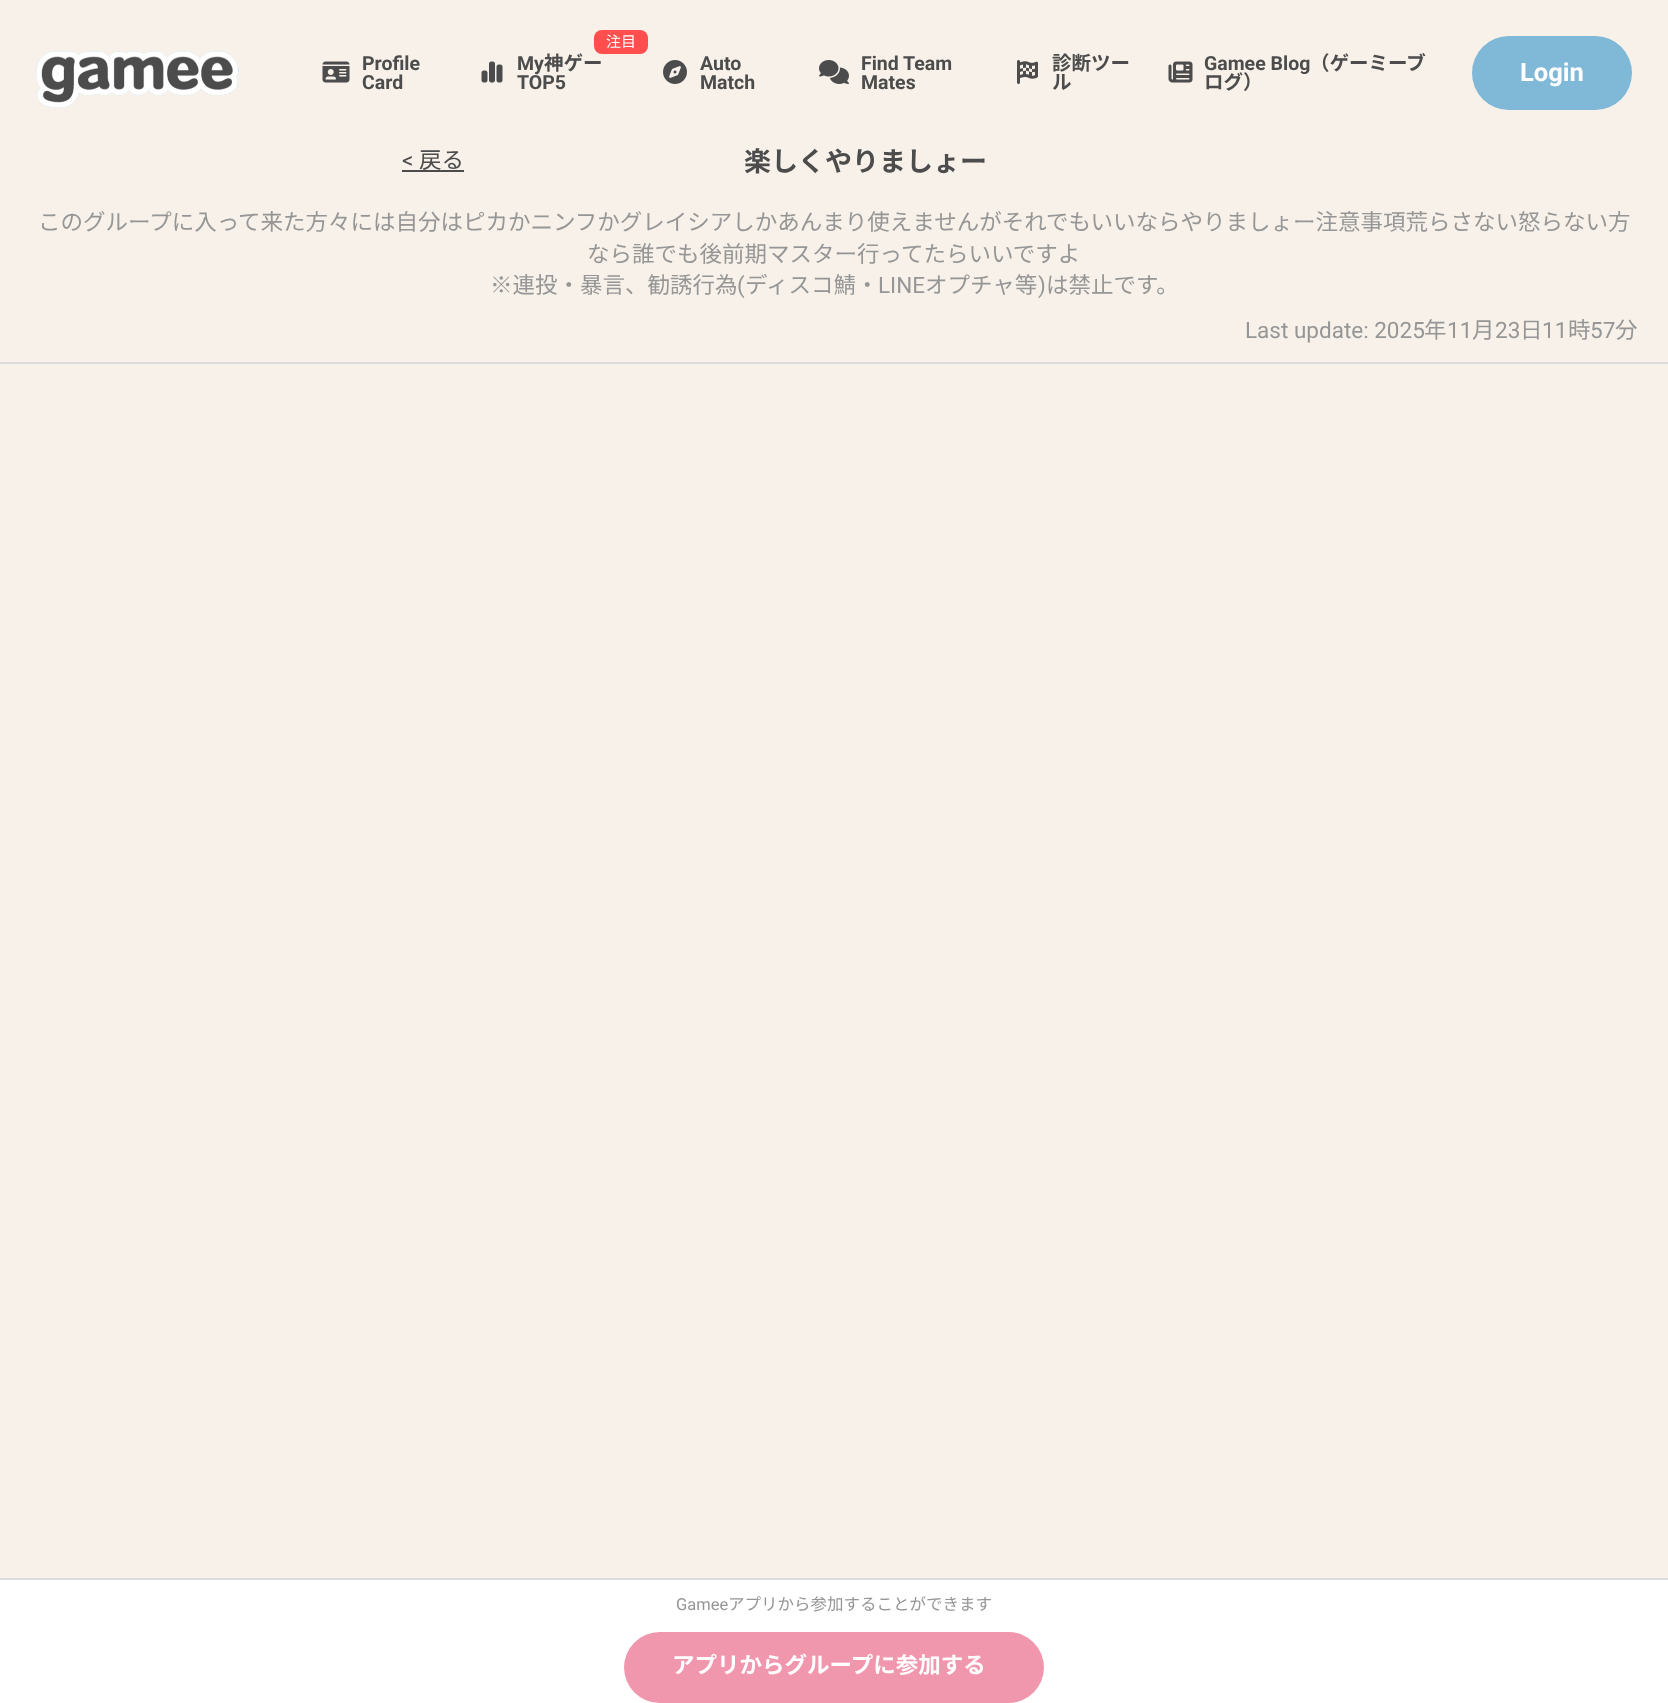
<svg xmlns="http://www.w3.org/2000/svg" width="1668" height="1703" viewBox="0 0 1668 1703">
  <style>
    .t1 { font: bold 19.5px Roboto; fill: #4c4c4c; }
    .t2 { font: bold 19.5px Noto Sans JP; fill: #4c4c4c; }
    .t3 { font: 15px Noto Sans JP; fill: #fff; }
    .t4 { font: bold 25.5px Roboto; fill: #fff; }
    .t5 { font: 22.5px Roboto; fill: #4c4c4c; }
    .t6 { font: 22.5px Noto Sans JP; fill: #4c4c4c; }
    .t7 { font: bold 27px Noto Sans JP; fill: #4c4c4c; }
    .t8 { font: 22.5px Noto Sans JP; fill: #969696; }
    .t9 { font: 22.5px Roboto; fill: #969696; }
    .t10 { font: 16.5px Roboto; fill: #969696; }
    .t11 { font: 16.5px Noto Sans JP; fill: #969696; }
    .t12 { font: bold 22.5px Noto Sans JP; fill: #fff; }
  </style>
  <rect width="100%" height="100%" fill="#f7f1e9"/>
  <image x="36" y="51" width="203" height="57" href="images/1.png"/>
  <image x="322" y="61" width="28" height="22" href="images/2.png"/>
  <text x="362" y="70" class="t1">Profile</text>
  <text x="362" y="89" class="t1">Card</text>
  <text x="544" y="70" class="t2">神ゲー</text>
  <rect x="594" y="30" width="54" height="24" rx="8" fill="#ff4e4e"/>
  <text x="606" y="47" class="t3">注目</text>
  <image x="481" y="61" width="22" height="22" href="images/3.png"/>
  <text x="517" y="70" class="t1">My</text>
  <text x="517" y="89" class="t1">TOP5</text>
  <image x="663" y="60" width="24" height="24" href="images/4.png"/>
  <text x="700" y="70" class="t1">Auto</text>
  <text x="700" y="89" class="t1">Match</text>
  <image x="819" y="60" width="30" height="24" href="images/5.png"/>
  <text x="861" y="70" class="t1">Find Team</text>
  <text x="861" y="89" class="t1">Mates</text>
  <image x="1017" y="60" width="21" height="24" href="images/6.png"/>
  <text x="1052" y="70" class="t2">診断ツー</text>
  <text x="1052" y="89" class="t2">ル</text>
  <image x="1168" y="61" width="25" height="22" href="images/7.png"/>
  <text x="1204" y="70" class="t1">Gamee Blog</text>
  <text x="1310" y="70" class="t2">（ゲーミーブ</text>
  <text x="1204" y="89" class="t2">ログ）</text>
  <rect x="1472" y="36" width="160" height="74" rx="37" fill="#80b8d7"/>
  <text x="1520" y="81" class="t4">Login</text>
  <text x="402" y="168" class="t5">&lt;</text>
  <rect x="402" y="170" width="62" height="2" fill="#4c4c4c"/>
  <text x="419" y="168" class="t6">戻る</text>
  <text x="744" y="171" class="t7">楽しくやりましょー</text>
  <text x="38" y="230" class="t8">このグループに入って来た方々には自分はピカかニンフかグレイシアしかあんまり使えませんがそれでもいいならやりましょー注意事項荒らさない怒らない方</text>
  <text x="587" y="262" class="t8">なら誰でも後前期マスター行ってたらいいですよ</text>
  <text x="490" y="293" class="t8">※連投・暴言、勧誘行為</text>
  <text x="737" y="293" class="t9">(</text>
  <text x="745" y="293" class="t8">ディスコ鯖・</text>
  <text x="878" y="293" class="t9">LINE</text>
  <text x="925" y="293" class="t8">オプチャ等</text>
  <text x="1038" y="293" class="t9">)</text>
  <text x="1046" y="293" class="t8">は禁止です。</text>
  <text x="1245" y="338" class="t9">Last update: 2025</text>
  <text x="1424" y="338" class="t8">年</text>
  <text x="1447" y="338" class="t9">11</text>
  <text x="1472" y="338" class="t8">月</text>
  <text x="1495" y="338" class="t9">23</text>
  <text x="1520" y="338" class="t8">日</text>
  <text x="1542" y="338" class="t9">11</text>
  <text x="1568" y="338" class="t8">時</text>
  <text x="1590" y="338" class="t9">57</text>
  <text x="1615" y="338" class="t8">分</text>
  <rect x="0" y="362" width="1668" height="2" fill="#dcdcdc"/>
  <rect x="0" y="1580" width="1668" height="123" fill="#fff"/>
  <rect x="0" y="1578" width="1668" height="2" fill="#dcdcdc"/>
  <text x="676" y="1610" class="t10">Gamee</text>
  <text x="728" y="1610" class="t11">アプリから参加することができます</text>
  <rect x="624" y="1632" width="420" height="71" rx="35.5" fill="#f197ad"/>
  <text x="672" y="1673" class="t12">アプリからグループに参加する</text>
</svg>
